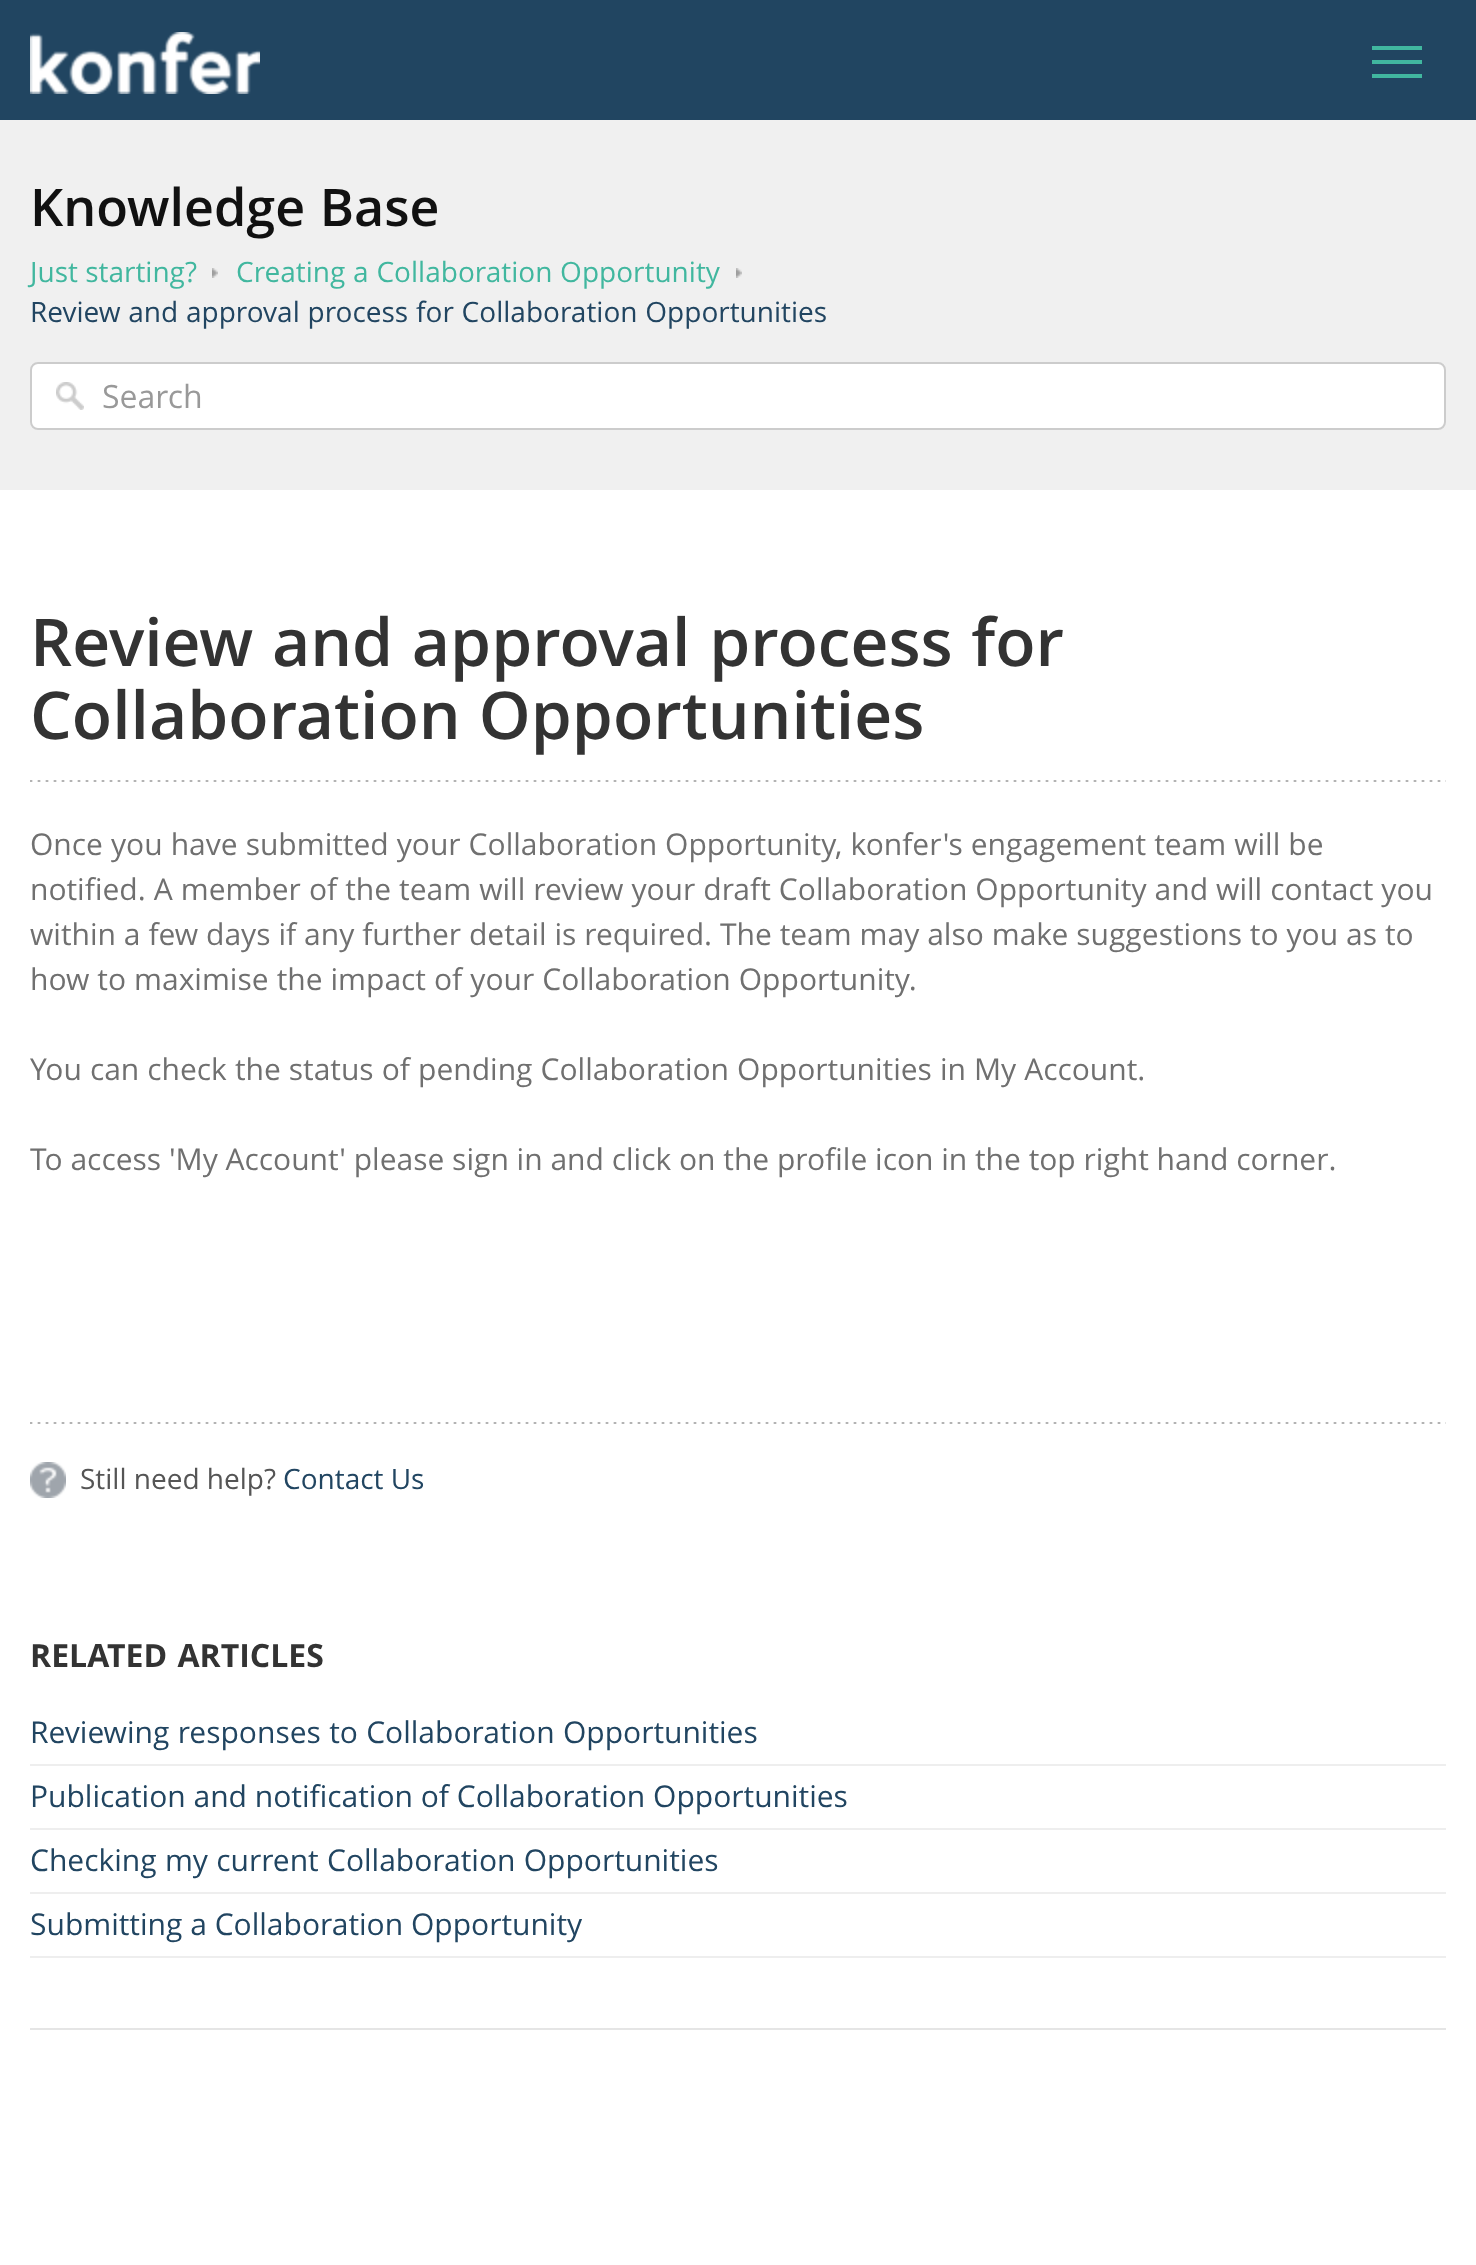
<svg xmlns="http://www.w3.org/2000/svg" width="1476" height="2265" viewBox="0 0 1476 2265">
  <style>
    .t1 { font: 600 52px Open Sans; fill: #111; }
    .t2 { font: 28px Open Sans; fill: #41b79f; }
    .t3 { font: 28px Open Sans; fill: #214561; }
    .t4 { font: 32px Open Sans; fill: #999; }
    .t5 { font: 600 66px Open Sans; fill: #333; }
    .t6 { font: 30px Open Sans; fill: #707070; }
    .t7 { font: 28px Open Sans; fill: #555; }
    .t8 { font: bold 32px Open Sans; fill: #333; }
    .t9 { font: 30px Open Sans; fill: #214561; }
  </style>
  <rect width="100%" height="100%" fill="#fff"/>
  <rect x="0" y="0" width="1476" height="120" fill="#214561"/>
  <image x="30" y="32" width="230" height="62" href="images/1.png"/>
  <rect x="1372" y="46" width="50" height="4" fill="#41b79f"/>
  <rect x="1372" y="60" width="50" height="4" fill="#41b79f"/>
  <rect x="1372" y="74" width="50" height="4" fill="#41b79f"/>
  <rect x="0" y="120" width="1476" height="370" fill="#f0f0f0"/>
  <text x="30" y="226" word-spacing="1" class="t1">Knowledge Base</text>
  <text x="30" y="282" class="t2">Just starting?</text>
  <image x="212" y="268" width="6" height="10" href="images/2.png"/>
  <text x="236" y="282" word-spacing="0.5" class="t2">Creating a Collaboration Opportunity</text>
  <image x="736" y="268" width="6" height="10" href="images/2.png"/>
  <text x="30" y="322" word-spacing="0.5" class="t3">Review and approval process for Collaboration Opportunities</text>
  <rect x="30" y="362" width="1416" height="68" rx="8" fill="#fff"/>
  <image x="56" y="382" width="28" height="28" href="images/3.png"/>
  <rect x="31" y="363" width="1414" height="66" rx="7" fill="none" stroke="#00000033" stroke-width="2"/>
  <text x="102" y="408" class="t4">Search</text>
  <rect x="30" y="2028" width="1416" height="2" fill="#e5e5e5"/>
  <image x="30" y="780" width="1416" height="2" href="images/4.png"/>
  <text x="30" y="666" word-spacing="1.5" class="t5">Review and approval process for</text>
  <text x="30" y="739" word-spacing="1" class="t5">Collaboration Opportunities</text>
  <text x="30" y="855" word-spacing="0.25" class="t6">Once you have submitted your Collaboration Opportunity, konfer's engagement team will be</text>
  <text x="30" y="900" word-spacing="0.25" class="t6">notified. A member of the team will review your draft Collaboration Opportunity and will contact you</text>
  <text x="30" y="945" word-spacing="0.1" class="t6">within a few days if any further detail is required. The team may also make suggestions to you as to</text>
  <text x="30" y="990" word-spacing="0.25" class="t6">how to maximise the impact of your Collaboration Opportunity.</text>
  <text x="30" y="1080" word-spacing="0.25" class="t6">You can check the status of pending Collaboration Opportunities in My Account.</text>
  <text x="30" y="1170" class="t6">To access 'My Account' please sign in and click on the profile icon in the top right hand corner.</text>
  <image x="30" y="1422" width="1416" height="2" href="images/4.png"/>
  <image x="30" y="1462" width="36" height="36" href="images/5.png"/>
  <text x="80" y="1489" class="t7">Still need help?</text>
  <text x="283" y="1489" class="t3">Contact Us</text>
  <text x="30" y="1667" word-spacing="2" class="t8">RELATED ARTICLES</text>
  <rect x="30" y="1764" width="1416" height="2" fill="#eee"/>
  <text x="30" y="1743" word-spacing="0.5" class="t9">Reviewing responses to Collaboration Opportunities</text>
  <rect x="30" y="1828" width="1416" height="2" fill="#eee"/>
  <text x="30" y="1807" class="t9">Publication and notification of Collaboration Opportunities</text>
  <rect x="30" y="1892" width="1416" height="2" fill="#eee"/>
  <text x="30" y="1871" word-spacing="0.5" class="t9">Checking my current Collaboration Opportunities</text>
  <rect x="30" y="1956" width="1416" height="2" fill="#eee"/>
  <text x="30" y="1935" class="t9">Submitting a Collaboration Opportunity</text>
</svg>
